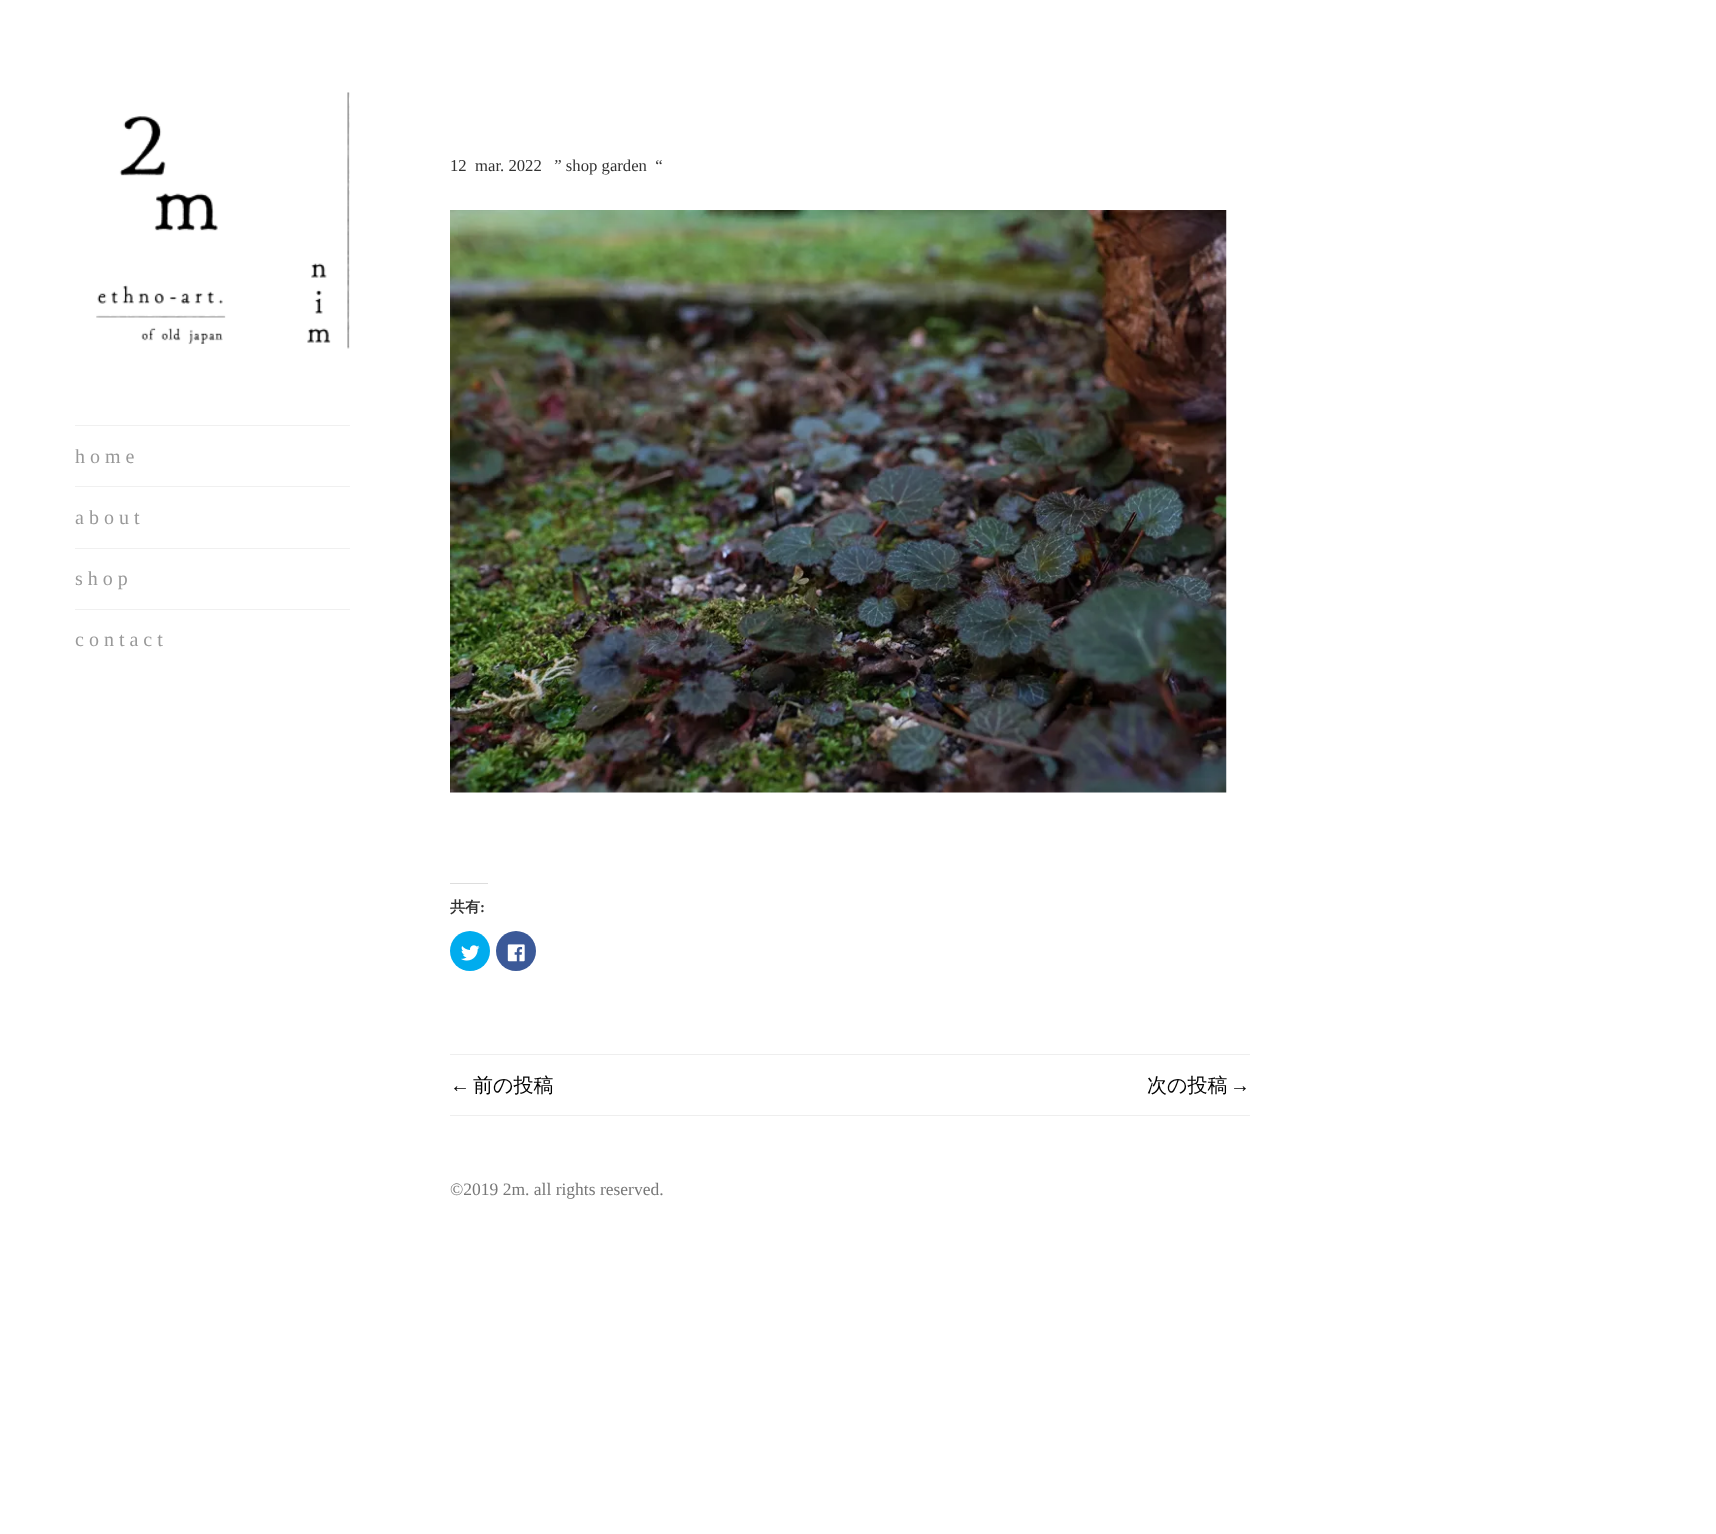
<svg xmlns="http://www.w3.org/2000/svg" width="1716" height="1534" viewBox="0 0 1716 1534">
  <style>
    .t1 { font: 20px Liberation Serif; fill: #999; }
    .t2 { font: 16.7px Liberation Serif; fill: #333; }
    .t3 { font: bold 15px WenQuanYi Zen Hei; fill: #333; }
    .t4 { font: bold 15px Liberation Serif; fill: #333; }
    .t5 { font: 20px Liberation Serif; fill: #000; }
    .t6 { font: 500 20px WenQuanYi Zen Hei; fill: #000; }
    .t7 { font: 17.5px Liberation Serif; fill: #777; }
  </style>
  <rect width="100%" height="100%" fill="#fff"/>
  <image x="96" y="92" width="254" height="257" href="images/1.png"/>
  <rect x="75" y="425" width="275" height="1" fill="#f0f0f0"/>
  <text x="75" y="463" class="t1">h o m e</text>
  <rect x="75" y="486" width="275" height="1" fill="#f0f0f0"/>
  <text x="75" y="524" class="t1">a b o u t</text>
  <rect x="75" y="548" width="275" height="1" fill="#f0f0f0"/>
  <text x="75" y="585" class="t1">s h o p</text>
  <rect x="75" y="609" width="275" height="1" fill="#f0f0f0"/>
  <text x="75" y="646" class="t1">c o n t a c t</text>
  <text x="450" y="171" class="t2" xml:space="preserve">12  mar. 2022   ” shop garden  “</text>
  <image x="450" y="210" width="777" height="583" href="images/2.png"/>
  <rect x="450" y="883" width="38" height="1" fill="#ddd"/>
  <text x="450" y="912" class="t3">共有</text>
  <text x="480" y="912" class="t4">:</text>
  <circle cx="470" cy="951" r="20" fill="#00acee"/>
  <image x="461" y="945" width="19" height="16" href="images/3.png"/>
  <circle cx="516" cy="951" r="20" fill="#3b5998"/>
  <image x="507" y="944" width="18" height="18" href="images/4.png"/>
  <rect x="450" y="1054" width="800" height="1" fill="#eee"/>
  <rect x="450" y="1115" width="800" height="1" fill="#eee"/>
  <text x="450" y="1092" class="t5">←</text>
  <text x="473" y="1092" class="t6">前の投稿</text>
  <text x="1147" y="1092" class="t6">次の投稿</text>
  <text x="1230" y="1092" class="t5">→</text>
  <text x="450" y="1195" class="t7">©2019 2m. all rights reserved.</text>
</svg>
